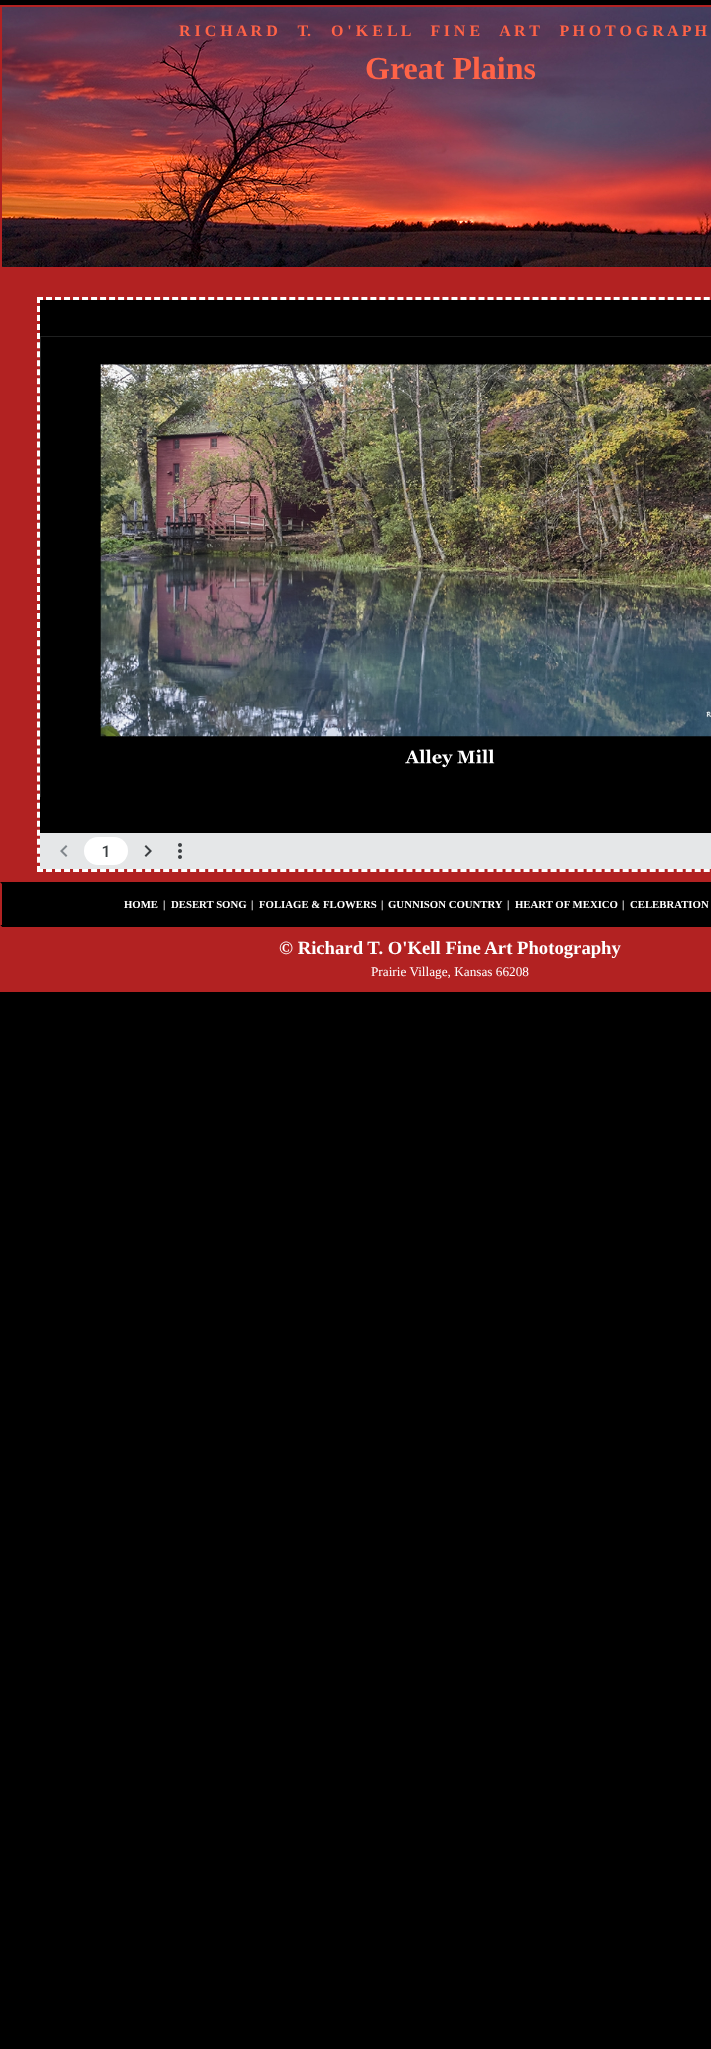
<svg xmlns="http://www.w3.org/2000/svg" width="711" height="2049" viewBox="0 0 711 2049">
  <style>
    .t1 { font: bold 16px Liberation Serif; fill: #ff6347; }
    .t2 { font: bold 32px Liberation Serif; fill: #ff6347; }
    .t3 { font: bold 10.75px Liberation Serif; fill: #fff; }
    .t4 { font: bold 18.7px Liberation Serif; fill: #fff; }
    .t5 { font: 13.25px Liberation Serif; fill: #fff; }
  </style>
  <rect width="100%" height="100%" fill="#000"/>
  <rect x="0" y="267" width="711" height="725" fill="#b22222"/>
  <image x="2" y="7" width="709" height="260" href="images/1.png"/>
  <rect x="0" y="5" width="711" height="2" fill="#b22222"/>
  <rect x="0" y="5" width="2" height="262" fill="#b22222"/>
  <text x="179" y="36" class="t1" xml:space="preserve">R I C H A R D     T.     O ' K E L L     F I N E     A R T     P H O T O G R A P H</text>
  <text x="365" y="79" class="t2">Great Plains</text>
  <path d="M37 298.5H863" fill="none" stroke="#fff" stroke-width="3" stroke-dasharray="6 3.01"/>
  <path d="M37 870.5H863" fill="none" stroke="#fff" stroke-width="3" stroke-dasharray="6 3.01"/>
  <path d="M38.5 297V872" fill="none" stroke="#fff" stroke-width="3" stroke-dasharray="6 3.03"/>
  <image x="40" y="300" width="671" height="569" href="images/2.png"/>
  <rect x="0" y="882" width="711" height="43" fill="#000"/>
  <path d="M0 925V882L2 884V925Z" fill="#b22222"/>
  <text x="124" y="908" class="t3">HOME</text>
  <text x="163" y="908" class="t3">|</text>
  <text x="171" y="908" class="t3">DESERT SONG</text>
  <text x="251" y="908" class="t3">|</text>
  <text x="259" y="908" class="t3">FOLIAGE &amp; FLOWERS</text>
  <text x="381" y="908" class="t3">|</text>
  <text x="388" y="908" class="t3">GUNNISON COUNTRY</text>
  <text x="507" y="908" class="t3">|</text>
  <text x="515" y="908" class="t3">HEART OF MEXICO</text>
  <text x="622" y="908" class="t3">|</text>
  <text x="630" y="908" class="t3">CELEBRATION</text>
  <path d="M0 925H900L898 927H2Z" fill="#000"/>
  <path d="M0 992V925L2 927V990Z" fill="#b22222"/>
  <text x="279" y="954" class="t4">© Richard T. O'Kell Fine Art Photography</text>
  <text x="371" y="976" class="t5">Prairie Village, Kansas 66208</text>
</svg>
